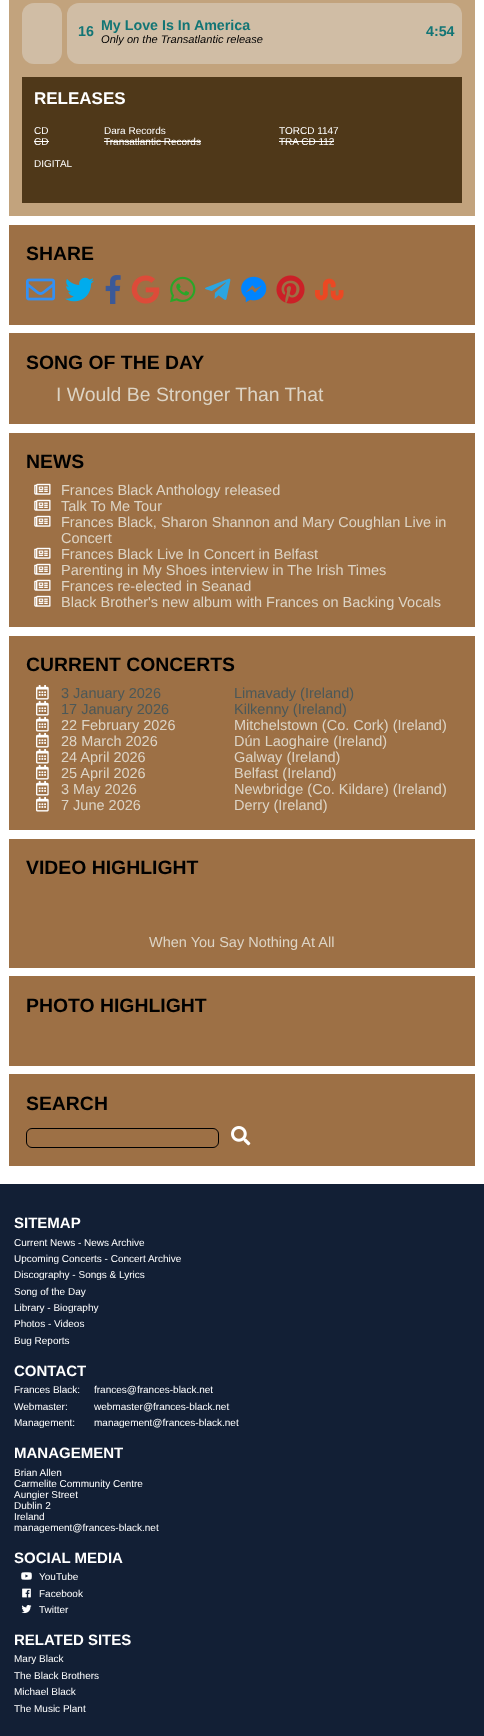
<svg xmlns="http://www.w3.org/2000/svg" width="484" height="1736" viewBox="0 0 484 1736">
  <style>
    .t1 { font: bold 14.25px Liberation Sans; fill: #127575; }
    .t2 { font: italic 11.1px Liberation Sans; fill: #000; }
    .t3 { font: bold 17px Liberation Sans; fill: #fff; }
    .t4 { font: 10px Liberation Sans; fill: #fff; }
    .t5 { font: bold 19.4px Liberation Sans; fill: #000; }
    .t6 { font: 19.4px Liberation Sans; fill: #ddd4c5; }
    .t7 { font: 14.5px Liberation Sans; fill: #ddd4c5; }
    .t8 { font: 14.5px Liberation Sans; fill: #4c5858; }
    .t9 { font: bold 15px Liberation Sans; fill: #fff; }
  </style>
  <rect width="100%" height="100%" fill="#fff"/>
  <rect x="9" y="0" width="466" height="216" fill="#c2a37d"/>
  <rect x="22" y="3" width="40" height="61" rx="12" fill="#d0bda5"/>
  <rect x="67" y="3" width="395" height="61" rx="12" fill="#d0bda5"/>
  <text x="78" y="36" class="t1">16</text>
  <text x="101" y="30" class="t1">My Love Is In America</text>
  <text x="101" y="43" class="t2">Only on the Transatlantic release</text>
  <text x="426" y="36" class="t1">4:54</text>
  <rect x="22" y="77" width="440" height="126" fill="#4f3819"/>
  <text x="34" y="104" class="t3">RELEASES</text>
  <text x="34" y="134" class="t4">CD</text>
  <text x="104" y="134" class="t4">Dara Records</text>
  <text x="279" y="134" class="t4">TORCD 1147</text>
  <text x="34" y="145" class="t4">CD</text>
  <rect x="34" y="141" width="15" height="1" fill="#fff"/>
  <text x="104" y="145" class="t4">Transatlantic Records</text>
  <rect x="104" y="141" width="97" height="1" fill="#fff"/>
  <text x="279" y="145" class="t4">TRA CD 112</text>
  <rect x="279" y="141" width="55" height="1" fill="#fff"/>
  <text x="34" y="167" class="t4">DIGITAL</text>
  <rect x="9" y="225" width="466" height="100" fill="#9d7045"/>
  <text x="26" y="260" class="t5">SHARE</text>
  <image x="26" y="278" width="30" height="23" href="images/1.png"/>
  <image x="65" y="277" width="29" height="25" href="images/2.png"/>
  <image x="105" y="275" width="16" height="29" href="images/3.png"/>
  <image x="131" y="275" width="29" height="29" href="images/4.png"/>
  <image x="170" y="276" width="26" height="27" href="images/5.png"/>
  <image x="205" y="278" width="26" height="22" href="images/6.png"/>
  <image x="241" y="276" width="26" height="27" href="images/7.png"/>
  <image x="276" y="275" width="29" height="29" href="images/8.png"/>
  <image x="315" y="278" width="29" height="23" href="images/9.png"/>
  <rect x="9" y="333" width="466" height="91" fill="#9d7045"/>
  <text x="26" y="369" class="t5">SONG OF THE DAY</text>
  <text x="56" y="401" class="t6">I Would Be Stronger Than That</text>
  <rect x="9" y="433" width="466" height="194" fill="#9d7045"/>
  <text x="26" y="468" class="t5">NEWS</text>
  <image x="34" y="483" width="17" height="12" href="images/10.png"/>
  <text x="61" y="495" class="t7">Frances Black Anthology released</text>
  <image x="34" y="499" width="17" height="12" href="images/10.png"/>
  <text x="61" y="511" class="t7">Talk To Me Tour</text>
  <image x="34" y="515" width="17" height="12" href="images/10.png"/>
  <text x="61" y="527" class="t7">Frances Black, Sharon Shannon and Mary Coughlan Live in</text>
  <text x="61" y="543" class="t7">Concert</text>
  <image x="34" y="547" width="17" height="12" href="images/10.png"/>
  <text x="61" y="559" class="t7">Frances Black Live In Concert in Belfast</text>
  <image x="34" y="563" width="17" height="12" href="images/10.png"/>
  <text x="61" y="575" class="t7">Parenting in My Shoes interview in The Irish Times</text>
  <image x="34" y="579" width="17" height="12" href="images/10.png"/>
  <text x="61" y="591" class="t7">Frances re-elected in Seanad</text>
  <image x="34" y="595" width="17" height="12" href="images/10.png"/>
  <text x="61" y="607" class="t7">Black Brother's new album with Frances on Backing Vocals</text>
  <rect x="9" y="636" width="466" height="194" fill="#9d7045"/>
  <text x="26" y="671" class="t5">CURRENT CONCERTS</text>
  <image x="36" y="685" width="13" height="15" href="images/11.png"/>
  <text x="61" y="698" class="t8">3 January 2026</text>
  <text x="234" y="698" class="t8">Limavady (Ireland)</text>
  <image x="36" y="701" width="13" height="15" href="images/11.png"/>
  <text x="61" y="714" class="t8">17 January 2026</text>
  <text x="234" y="714" class="t8">Kilkenny (Ireland)</text>
  <image x="36" y="717" width="13" height="15" href="images/11.png"/>
  <text x="61" y="730" class="t7">22 February 2026</text>
  <text x="234" y="730" class="t7">Mitchelstown (Co. Cork) (Ireland)</text>
  <image x="36" y="733" width="13" height="15" href="images/11.png"/>
  <text x="61" y="746" class="t7">28 March 2026</text>
  <text x="234" y="746" class="t7">Dún Laoghaire (Ireland)</text>
  <image x="36" y="749" width="13" height="15" href="images/11.png"/>
  <text x="61" y="762" class="t7">24 April 2026</text>
  <text x="234" y="762" class="t7">Galway (Ireland)</text>
  <image x="36" y="765" width="13" height="15" href="images/11.png"/>
  <text x="61" y="778" class="t7">25 April 2026</text>
  <text x="234" y="778" class="t7">Belfast (Ireland)</text>
  <image x="36" y="781" width="13" height="15" href="images/11.png"/>
  <text x="61" y="794" class="t7">3 May 2026</text>
  <text x="234" y="794" class="t7">Newbridge (Co. Kildare) (Ireland)</text>
  <image x="36" y="797" width="13" height="15" href="images/11.png"/>
  <text x="61" y="810" class="t7">7 June 2026</text>
  <text x="234" y="810" class="t7">Derry (Ireland)</text>
  <rect x="9" y="839" width="466" height="129" fill="#9d7045"/>
  <text x="26" y="874" class="t5">VIDEO HIGHLIGHT</text>
  <text x="149" y="947" class="t7">When You Say Nothing At All</text>
  <rect x="9" y="976" width="466" height="90" fill="#9d7045"/>
  <text x="26" y="1012" class="t5">PHOTO HIGHLIGHT</text>
  <rect x="9" y="1074" width="466" height="92" fill="#9d7045"/>
  <text x="26" y="1110" class="t5">SEARCH</text>
  <rect x="26.5" y="1128.5" width="192" height="19" rx="5.5" fill="none" stroke="#000"/>
  <image x="231" y="1126" width="20" height="20" href="images/12.png"/>
  <rect x="0" y="1184" width="484" height="552" fill="#121f35"/>
  <text x="14" y="1228" class="t9">SITEMAP</text>
  <text x="14" y="1246" class="t4">Current News - News Archive</text>
  <text x="14" y="1262" class="t4">Upcoming Concerts - Concert Archive</text>
  <text x="14" y="1278" class="t4">Discography - Songs &amp; Lyrics</text>
  <text x="14" y="1295" class="t4">Song of the Day</text>
  <text x="14" y="1311" class="t4">Library - Biography</text>
  <text x="14" y="1327" class="t4">Photos - Videos</text>
  <text x="14" y="1344" class="t4">Bug Reports</text>
  <text x="14" y="1376" class="t9">CONTACT</text>
  <text x="14" y="1393" class="t4">Frances Black:</text>
  <text x="94" y="1393" class="t4">frances@frances-black.net</text>
  <text x="14" y="1410" class="t4">Webmaster:</text>
  <text x="94" y="1410" class="t4">webmaster@frances-black.net</text>
  <text x="14" y="1426" class="t4">Management:</text>
  <text x="94" y="1426" class="t4">management@frances-black.net</text>
  <text x="14" y="1458" class="t9">MANAGEMENT</text>
  <text x="14" y="1476" class="t4">Brian Allen</text>
  <text x="14" y="1487" class="t4">Carmelite Community Centre</text>
  <text x="14" y="1498" class="t4">Aungier Street</text>
  <text x="14" y="1509" class="t4">Dublin 2</text>
  <text x="14" y="1520" class="t4">Ireland</text>
  <text x="14" y="1531" class="t4">management@frances-black.net</text>
  <text x="14" y="1563" class="t9">SOCIAL MEDIA</text>
  <image x="21" y="1572" width="11" height="8" href="images/13.png"/>
  <text x="39" y="1580" class="t4">YouTube</text>
  <image x="22" y="1588" width="9" height="10" href="images/14.png"/>
  <text x="39" y="1597" class="t4">Facebook</text>
  <image x="21" y="1605" width="11" height="9" href="images/15.png"/>
  <text x="39" y="1613" class="t4">Twitter</text>
  <text x="14" y="1645" class="t9">RELATED SITES</text>
  <text x="14" y="1662" class="t4">Mary Black</text>
  <text x="14" y="1679" class="t4">The Black Brothers</text>
  <text x="14" y="1695" class="t4">Michael Black</text>
  <text x="14" y="1712" class="t4">The Music Plant</text>
</svg>
